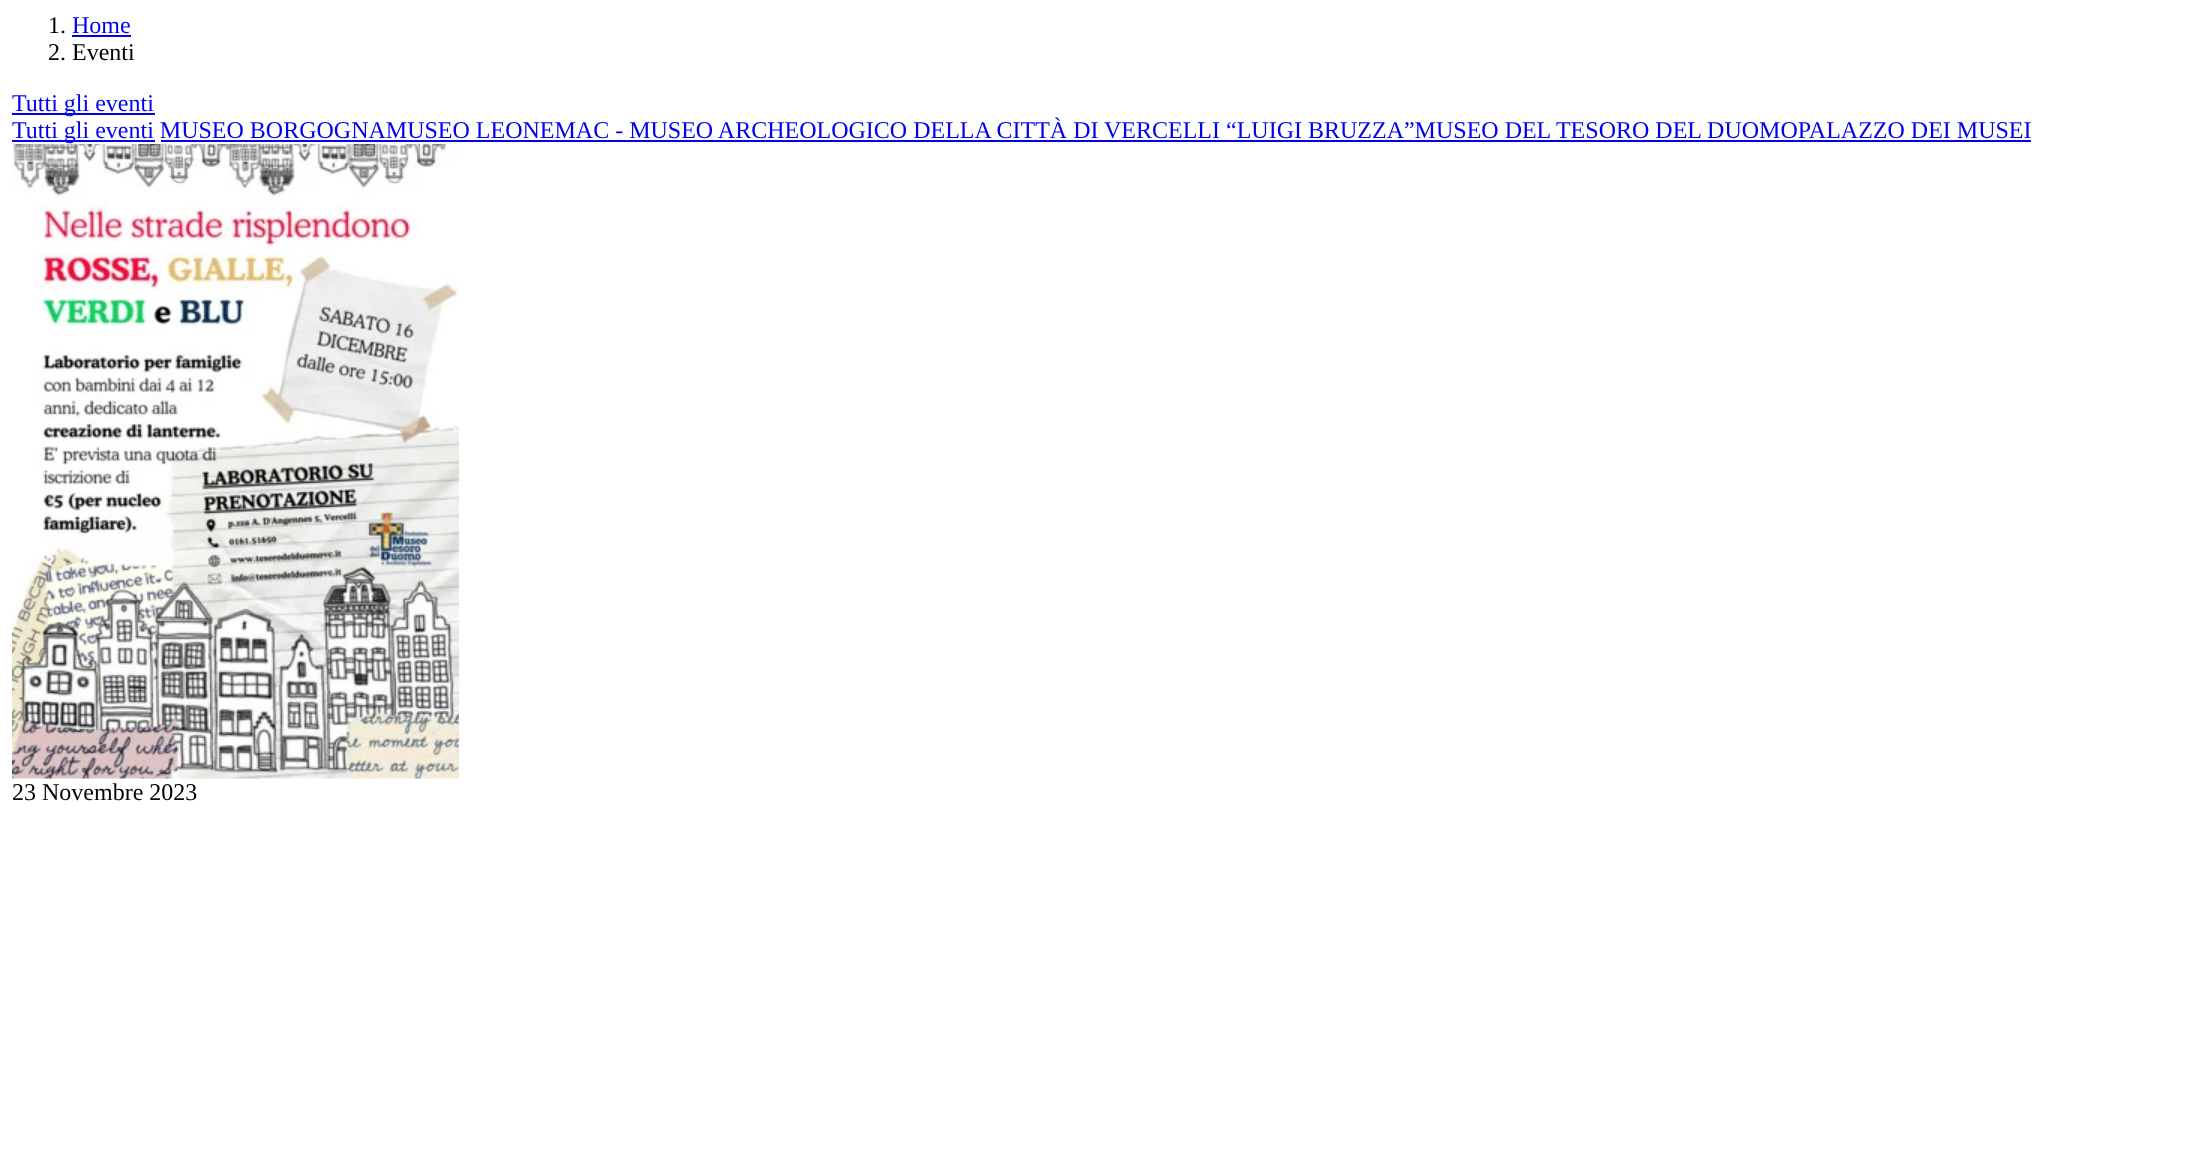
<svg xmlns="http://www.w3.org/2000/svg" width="2191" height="1154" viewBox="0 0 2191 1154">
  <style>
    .t1 { font: 24px Liberation Serif; fill: #000; }
    .t2 { font: 24px Liberation Serif; fill: #00e; }
  </style>
  <rect width="100%" height="100%" fill="#fff"/>
  <text x="48" y="33" class="t1">1.</text>
  <text x="72" y="33" class="t2">Home</text>
  <rect x="72" y="35" width="59" height="2" fill="#00e"/>
  <text x="48" y="60" class="t1">2. Eventi</text>
  <rect x="12" y="113" width="143" height="2" fill="#00e"/>
  <text x="12" y="111" class="t2">Tutti gli eventi</text>
  <rect x="12" y="140" width="143" height="2" fill="#00e"/>
  <text x="12" y="138" class="t2">Tutti gli eventi MUSEO BORGOGNAMUSEO LEONEMAC - MUSEO ARCHEOLOGICO DELLA CITTÀ DI VERCELLI “LUIGI BRUZZA”MUSEO DEL TESORO DEL DUOMOPALAZZO DEI MUSEI</text>
  <rect x="161" y="140" width="1870" height="2" fill="#00e"/>
  <image x="12" y="144" width="447" height="635" href="images/1.png"/>
  <text x="12" y="800" class="t1">23 Novembre 2023</text>
</svg>
